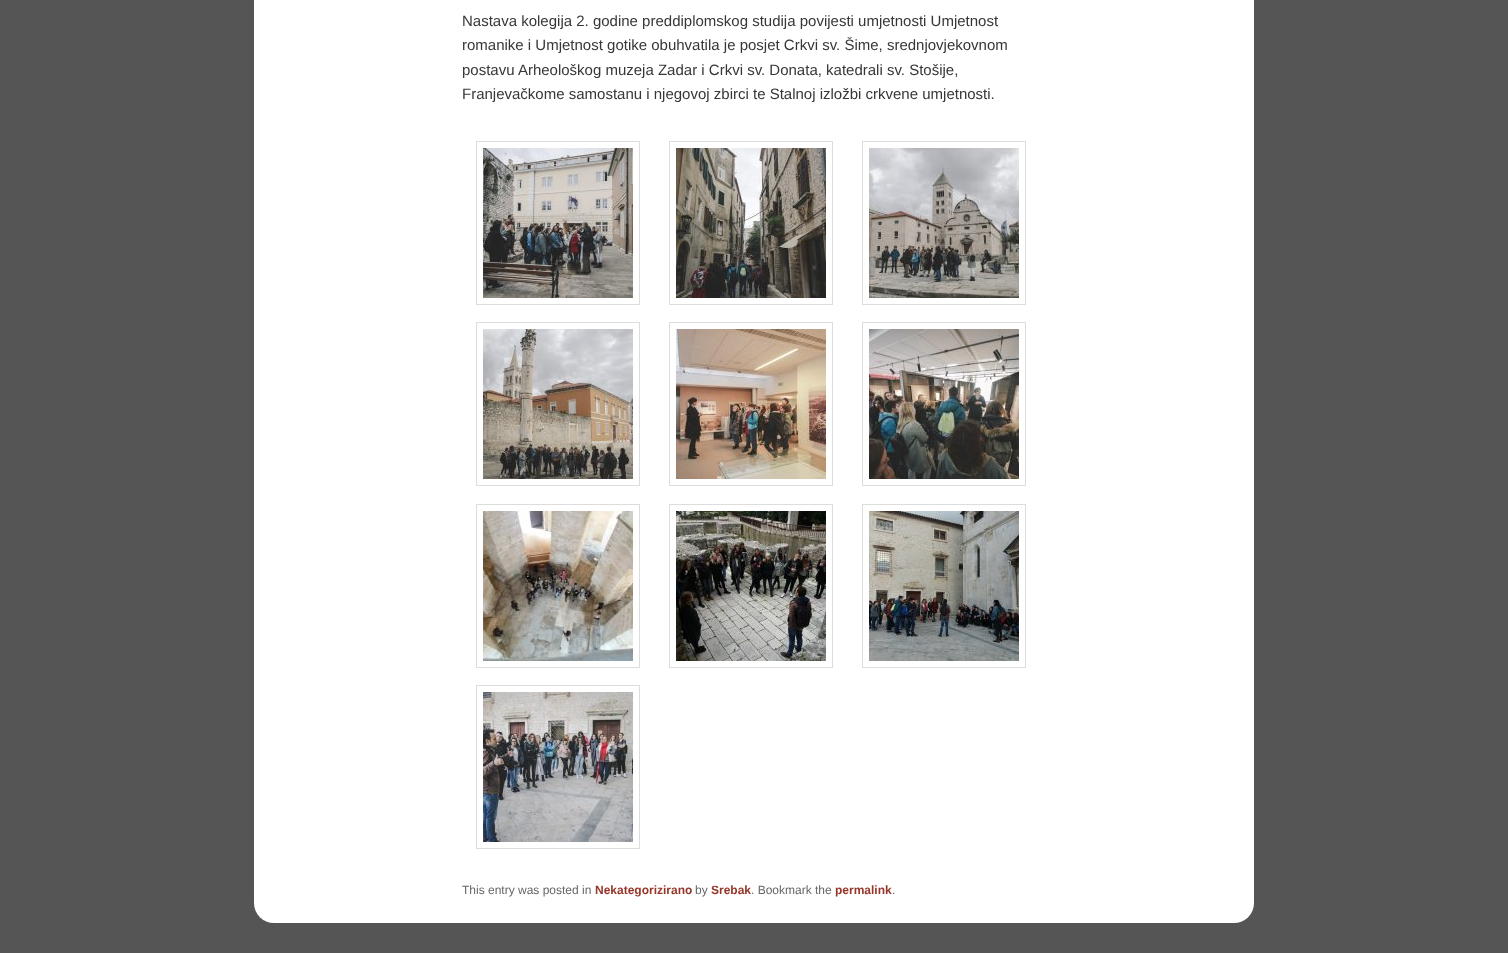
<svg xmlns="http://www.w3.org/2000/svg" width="1508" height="953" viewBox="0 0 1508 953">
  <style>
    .t1 { font: 15px Liberation Sans; fill: #373737; }
    .t2 { font: 12px Liberation Sans; fill: #666; }
    .t3 { font: bold 12px Liberation Sans; fill: #963529; }
  </style>
  <rect width="100%" height="100%" fill="#555"/>
  <rect x="254" y="-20" width="1000" height="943" rx="20" fill="#fff"/>
  <text x="462" y="26" class="t1">Nastava kolegija 2. godine preddiplomskog studija povijesti umjetnosti Umjetnost</text>
  <text x="462" y="50" class="t1">romanike i Umjetnost gotike obuhvatila je posjet Crkvi sv. Šime, srednjovjekovnom</text>
  <text x="462" y="75" class="t1">postavu Arheološkog muzeja Zadar i Crkvi sv. Donata, katedrali sv. Stošije,</text>
  <text x="462" y="99" class="t1">Franjevačkome samostanu i njegovoj zbirci te Stalnoj izložbi crkvene umjetnosti.</text>
  <rect x="476.5" y="141.5" width="163" height="163" fill="none" stroke="#ddd"/>
  <image x="483" y="148" width="150" height="150" href="images/1.png"/>
  <rect x="669.5" y="141.5" width="163" height="163" fill="none" stroke="#ddd"/>
  <image x="676" y="148" width="150" height="150" href="images/2.png"/>
  <rect x="862.5" y="141.5" width="163" height="163" fill="none" stroke="#ddd"/>
  <image x="869" y="148" width="150" height="150" href="images/3.png"/>
  <rect x="476.5" y="322.5" width="163" height="163" fill="none" stroke="#ddd"/>
  <image x="483" y="329" width="150" height="150" href="images/4.png"/>
  <rect x="669.5" y="322.5" width="163" height="163" fill="none" stroke="#ddd"/>
  <image x="676" y="329" width="150" height="150" href="images/5.png"/>
  <rect x="862.5" y="322.5" width="163" height="163" fill="none" stroke="#ddd"/>
  <image x="869" y="329" width="150" height="150" href="images/6.png"/>
  <rect x="476.5" y="504.5" width="163" height="163" fill="none" stroke="#ddd"/>
  <image x="483" y="511" width="150" height="150" href="images/7.png"/>
  <rect x="669.5" y="504.5" width="163" height="163" fill="none" stroke="#ddd"/>
  <image x="676" y="511" width="150" height="150" href="images/8.png"/>
  <rect x="862.5" y="504.5" width="163" height="163" fill="none" stroke="#ddd"/>
  <image x="869" y="511" width="150" height="150" href="images/9.png"/>
  <rect x="476.5" y="685.5" width="163" height="163" fill="none" stroke="#ddd"/>
  <image x="483" y="692" width="150" height="150" href="images/10.png"/>
  <text x="462" y="894" class="t2">This entry was posted in</text>
  <text x="595" y="894" class="t3">Nekategorizirano</text>
  <text x="695" y="894" class="t2">by</text>
  <text x="711" y="894" class="t3">Srebak</text>
  <text x="751" y="894" class="t2">. Bookmark the</text>
  <text x="835" y="894" class="t3">permalink</text>
  <text x="892" y="894" class="t2">.</text>
</svg>
